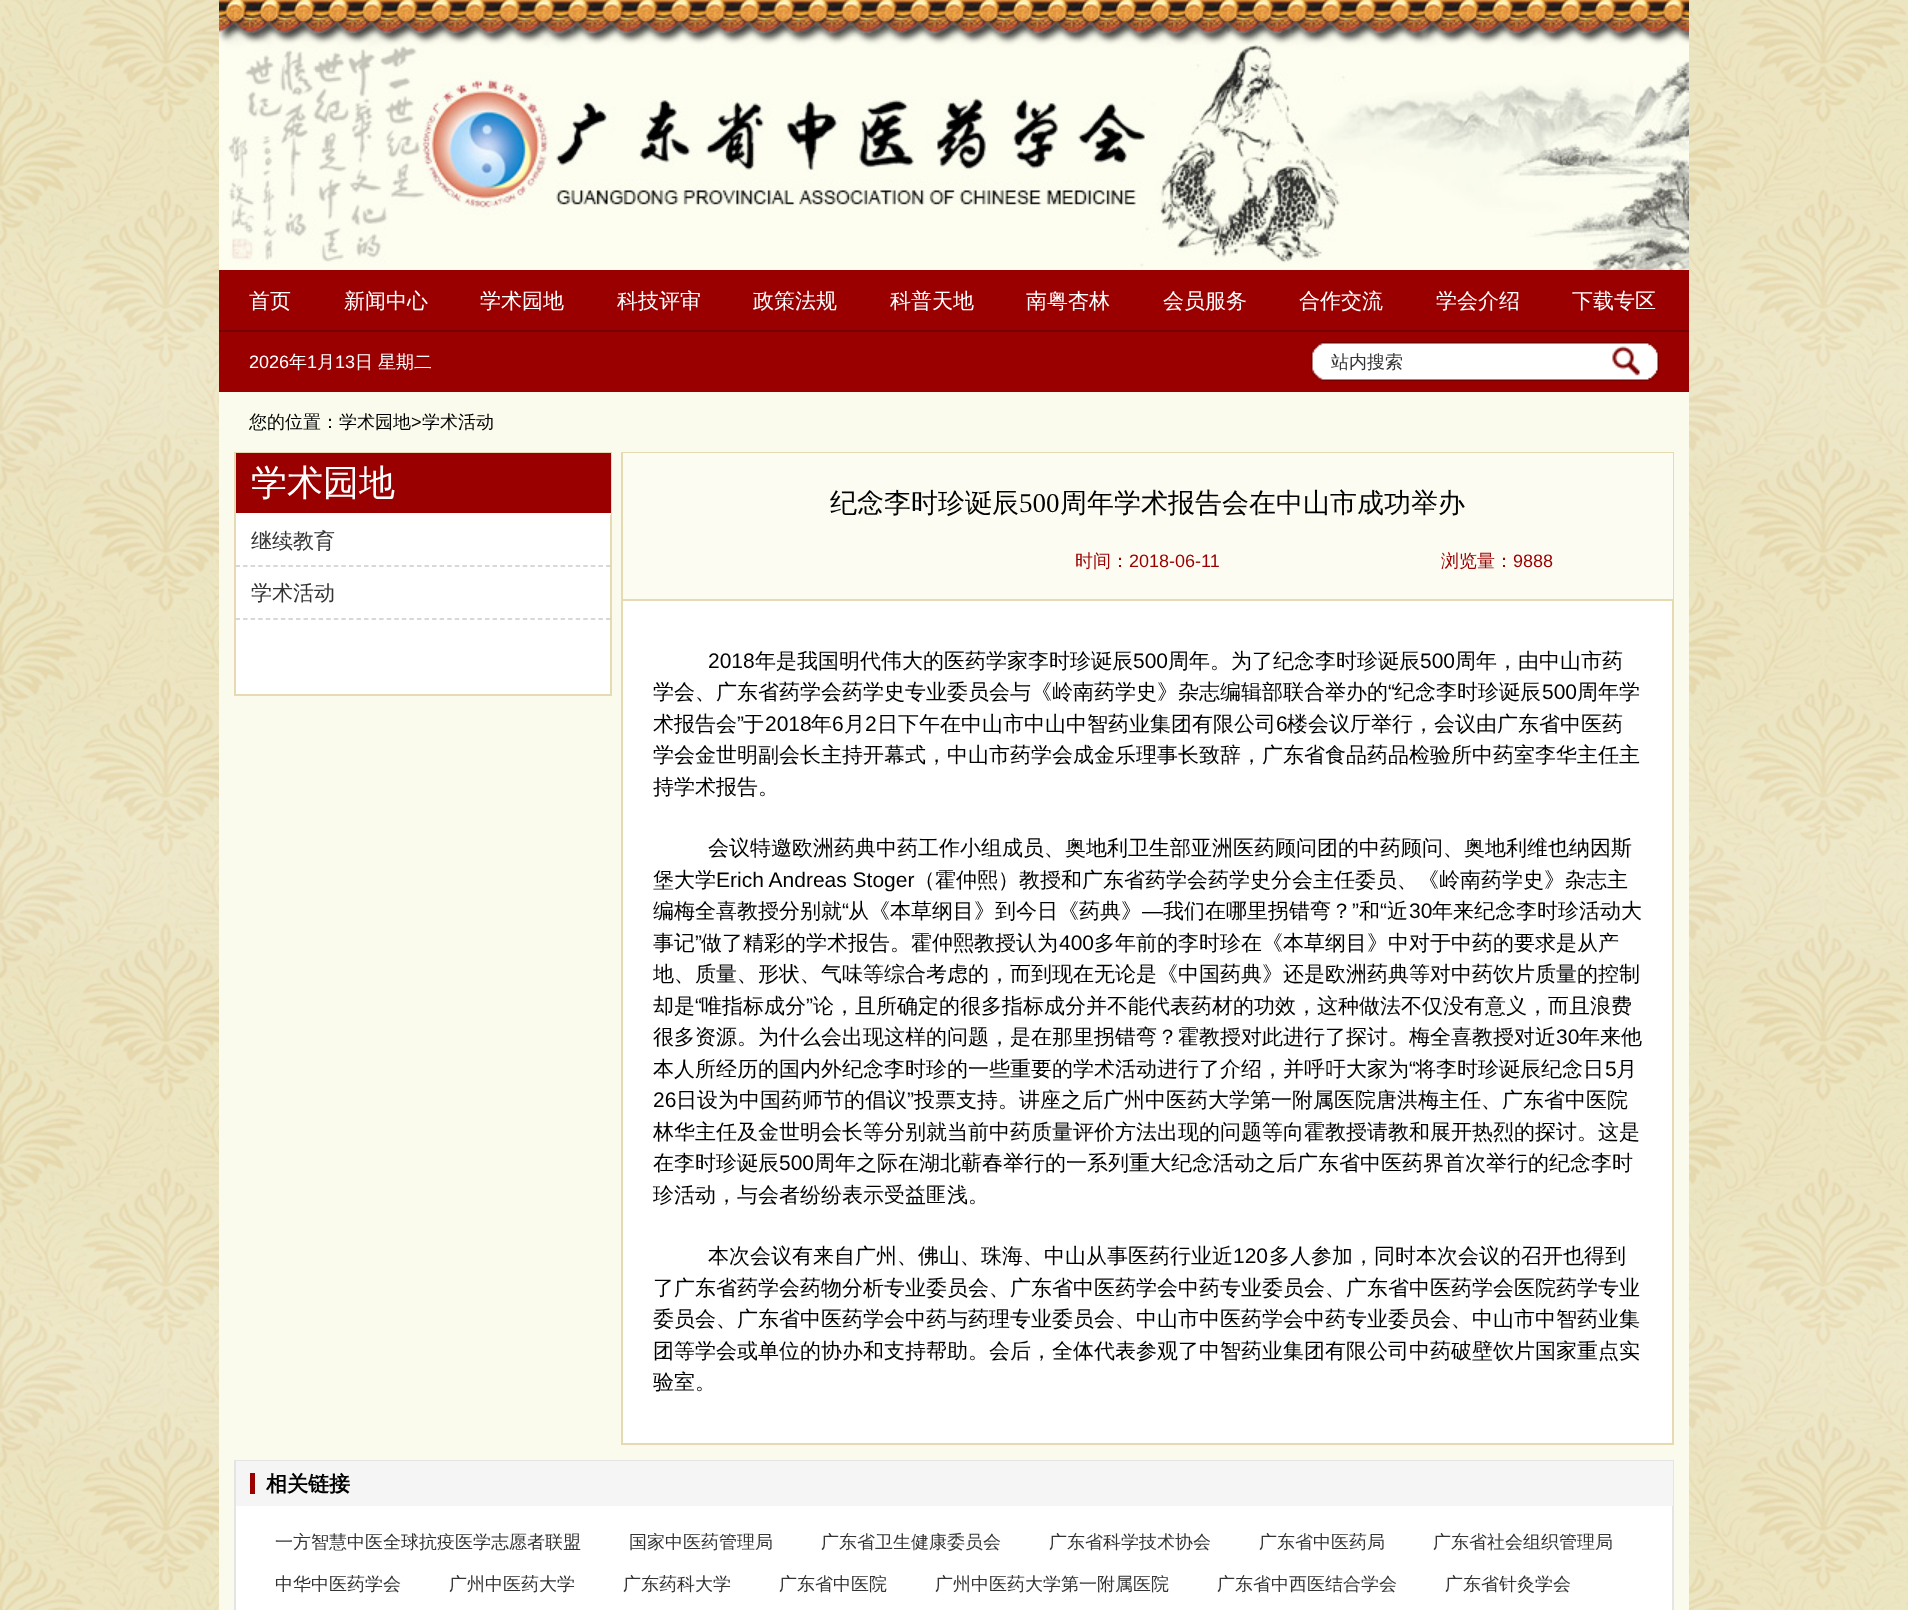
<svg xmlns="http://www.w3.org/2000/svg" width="1908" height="1610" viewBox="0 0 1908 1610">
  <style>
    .t1 { font: 500 21px WenQuanYi Zen Hei; fill: #fff; }
    .t2 { font: 18px Liberation Sans; fill: #fff; }
    .t3 { font: 500 18px WenQuanYi Zen Hei; fill: #fff; }
    .t4 { font: 500 18px WenQuanYi Zen Hei; fill: #333; }
    .t5 { font: 500 18px WenQuanYi Zen Hei; fill: #000; }
    .t6 { font: 18px Liberation Sans; fill: #000; }
    .t7 { font: 500 36px WenQuanYi Zen Hei; fill: #fff; }
    .t8 { font: 500 21px WenQuanYi Zen Hei; fill: #333; }
    .t9 { font: 500 27px WenQuanYi Zen Hei; fill: #000; }
    .t10 { font: 27px Liberation Serif; fill: #000; }
    .t11 { font: 500 18px WenQuanYi Zen Hei; fill: #9a0000; }
    .t12 { font: 18px Liberation Sans; fill: #9a0000; }
    .t13 { font: 21px Liberation Sans; fill: #000; }
    .t14 { font: 500 21px WenQuanYi Zen Hei; fill: #000; }
    .t15 { font: bold 21px WenQuanYi Zen Hei; fill: #000; }
  </style>
  <rect width="100%" height="100%" fill="#fff"/>
  <image x="0" y="0" width="1908" height="1610" href="images/1.png"/>
  <rect x="219" y="392" width="1470" height="1218" fill="#fafbed"/>
  <image x="219" y="0" width="1470" height="270" href="images/2.png"/>
  <rect x="219" y="270" width="1470" height="60" fill="#9a0000"/>
  <text x="249" y="308" class="t1">首页</text>
  <text x="344" y="308" class="t1">新闻中心</text>
  <text x="480" y="308" class="t1">学术园地</text>
  <text x="617" y="308" class="t1">科技评审</text>
  <text x="753" y="308" class="t1">政策法规</text>
  <text x="890" y="308" class="t1">科普天地</text>
  <text x="1026" y="308" class="t1">南粤杏林</text>
  <text x="1163" y="308" class="t1">会员服务</text>
  <text x="1299" y="308" class="t1">合作交流</text>
  <text x="1436" y="308" class="t1">学会介绍</text>
  <text x="1572" y="308" class="t1">下载专区</text>
  <rect x="219" y="332" width="1470" height="60" fill="#9a0000"/>
  <rect x="219" y="330" width="1470" height="2" fill="#740000"/>
  <text x="249" y="368" class="t2">2026</text>
  <text x="289" y="368" class="t3">年</text>
  <text x="307" y="368" class="t2">1</text>
  <text x="317" y="368" class="t3">月</text>
  <text x="335" y="368" class="t2">13</text>
  <text x="355" y="368" class="t3">日</text>
  <text x="378" y="368" class="t3">星期二</text>
  <image x="1311" y="342" width="291" height="39" href="images/3.png"/>
  <text x="1331" y="368" class="t4">站内搜索</text>
  <image x="1602" y="342" width="57" height="39" href="images/4.png"/>
  <text x="249" y="428" class="t5">您的位置：学术园地</text>
  <text x="411" y="428" class="t6">&gt;</text>
  <text x="422" y="428" class="t5">学术活动</text>
  <rect x="236" y="515" width="374" height="179" fill="#fff"/>
  <rect x="235" y="453" width="376" height="242" fill="none" stroke="#e5dab2" stroke-width="2"/>
  <rect x="236" y="453" width="375" height="60" fill="#9a0000"/>
  <rect x="236" y="513" width="375" height="2" fill="#fff"/>
  <text x="251" y="495" class="t7">学术园地</text>
  <path d="M235.5 566H610.5" fill="none" stroke="#ccc" stroke-width="1.5" stroke-dasharray="4.5 3.06"/>
  <text x="251" y="548" class="t8">继续教育</text>
  <path d="M235.5 619H610.5" fill="none" stroke="#ccc" stroke-width="1.5" stroke-dasharray="4.5 3.06"/>
  <text x="251" y="600" class="t8">学术活动</text>
  <rect x="623" y="601" width="1049" height="842" fill="#fff"/>
  <rect x="622" y="453" width="1051" height="991" fill="none" stroke="#e5dab2" stroke-width="2"/>
  <rect x="623" y="453" width="1050" height="86" fill="#fcfcf3"/>
  <text x="830" y="512" class="t9">纪念李时珍诞辰</text>
  <text x="1019" y="512" class="t10">500</text>
  <text x="1060" y="512" class="t9">周年学术报告会在中山市成功举办</text>
  <rect x="623" y="539" width="1050" height="60" fill="#fcfcf3"/>
  <text x="1075" y="567" class="t11">时间：</text>
  <text x="1129" y="567" class="t12">2018-06-11</text>
  <rect x="623" y="599" width="1051" height="2" fill="#e5dab2"/>
  <text x="1441" y="567" class="t11">浏览量：</text>
  <text x="1513" y="567" class="t12">9888</text>
  <text x="708" y="668" class="t13">2018</text>
  <text x="755" y="668" class="t14">年是我国明代伟大的医药学家李时珍诞辰</text>
  <text x="1133" y="668" class="t13">500</text>
  <text x="1168" y="668" class="t14">周年。为了纪念李时珍诞辰</text>
  <text x="1420" y="668" class="t13">500</text>
  <text x="1455" y="668" class="t14">周年，由中山市药</text>
  <text x="653" y="699" class="t14">学会、广东省药学会药学史专业委员会与《岭南药学史》杂志编辑部联合举办的</text>
  <text x="1388" y="699" class="t13">“</text>
  <text x="1394" y="699" class="t14">纪念李时珍诞辰</text>
  <text x="1542" y="699" class="t13">500</text>
  <text x="1577" y="699" class="t14">周年学</text>
  <text x="653" y="731" class="t14">术报告会</text>
  <text x="737" y="731" class="t13">”</text>
  <text x="743" y="731" class="t14">于</text>
  <text x="765" y="731" class="t13">2018</text>
  <text x="811" y="731" class="t14">年</text>
  <text x="832" y="731" class="t13">6</text>
  <text x="844" y="731" class="t14">月</text>
  <text x="865" y="731" class="t13">2</text>
  <text x="877" y="731" class="t14">日下午在中山市中山中智药业集团有限公司</text>
  <text x="1276" y="731" class="t13">6</text>
  <text x="1287" y="731" class="t14">楼会议厅举行，会议由广东省中医药</text>
  <text x="653" y="762" class="t14">学会金世明副会长主持开幕式，中山市药学会成金乐理事长致辞，广东省食品药品检验所中药室李华主任主</text>
  <text x="653" y="794" class="t14">持学术报告。</text>
  <text x="708" y="855" class="t14">会议特邀欧洲药典中药工作小组成员、奥地利卫生部亚洲医药顾问团的中药顾问、奥地利维也纳因斯</text>
  <text x="653" y="887" class="t14">堡大学</text>
  <text x="716" y="887" class="t13">Erich Andreas Stoger</text>
  <text x="914" y="887" class="t14">（霍仲熙）教授和广东省药学会药学史分会主任委员、《岭南药学史》杂志主</text>
  <text x="653" y="918" class="t14">编梅全喜教授分别就</text>
  <text x="842" y="918" class="t13">“</text>
  <text x="848" y="918" class="t14">从《本草纲目》到今日《药典》</text>
  <text x="1142" y="918" class="t13">—</text>
  <text x="1163" y="918" class="t14">我们在哪里拐错弯？</text>
  <text x="1352" y="918" class="t13">”</text>
  <text x="1359" y="918" class="t14">和</text>
  <text x="1380" y="918" class="t13">“</text>
  <text x="1387" y="918" class="t14">近</text>
  <text x="1409" y="918" class="t13">30</text>
  <text x="1432" y="918" class="t14">年来纪念李时珍活动大</text>
  <text x="653" y="950" class="t14">事记</text>
  <text x="695" y="950" class="t13">”</text>
  <text x="701" y="950" class="t14">做了精彩的学术报告。霍仲熙教授认为</text>
  <text x="1059" y="950" class="t13">400</text>
  <text x="1094" y="950" class="t14">多年前的李时珍在《本草纲目》中对于中药的要求是从产</text>
  <text x="653" y="981" class="t14">地、质量、形状、气味等综合考虑的，而到现在无论是《中国药典》还是欧洲药典等对中药饮片质量的控制</text>
  <text x="653" y="1013" class="t14">却是</text>
  <text x="695" y="1013" class="t13">“</text>
  <text x="701" y="1013" class="t14">唯指标成分</text>
  <text x="806" y="1013" class="t13">”</text>
  <text x="813" y="1013" class="t14">论，且所确定的很多指标成分并不能代表药材的功效，这种做法不仅没有意义，而且浪费</text>
  <text x="653" y="1044" class="t14">很多资源。为什么会出现这样的问题，是在那里拐错弯？霍教授对此进行了探讨。梅全喜教授对近</text>
  <text x="1556" y="1044" class="t13">30</text>
  <text x="1579" y="1044" class="t14">年来他</text>
  <text x="653" y="1076" class="t14">本人所经历的国内外纪念李时珍的一些重要的学术活动进行了介绍，并呼吁大家为</text>
  <text x="1409" y="1076" class="t13">“</text>
  <text x="1415" y="1076" class="t14">将李时珍诞辰纪念日</text>
  <text x="1605" y="1076" class="t13">5</text>
  <text x="1616" y="1076" class="t14">月</text>
  <text x="653" y="1107" class="t13">26</text>
  <text x="676" y="1107" class="t14">日设为中国药师节的倡议</text>
  <text x="907" y="1107" class="t13">”</text>
  <text x="914" y="1107" class="t14">投票支持。讲座之后广州中医药大学第一附属医院唐洪梅主任、广东省中医院</text>
  <text x="653" y="1139" class="t14">林华主任及金世明会长等分别就当前中药质量评价方法出现的问题等向霍教授请教和展开热烈的探讨。这是</text>
  <text x="653" y="1170" class="t14">在李时珍诞辰</text>
  <text x="779" y="1170" class="t13">500</text>
  <text x="814" y="1170" class="t14">周年之际在湖北蕲春举行的一系列重大纪念活动之后广东省中医药界首次举行的纪念李时</text>
  <text x="653" y="1202" class="t14">珍活动，与会者纷纷表示受益匪浅。</text>
  <text x="708" y="1263" class="t14">本次会议有来自广州、佛山、珠海、中山从事医药行业近</text>
  <text x="1233" y="1263" class="t13">120</text>
  <text x="1269" y="1263" class="t14">多人参加，同时本次会议的召开也得到</text>
  <text x="653" y="1295" class="t14">了广东省药学会药物分析专业委员会、广东省中医药学会中药专业委员会、广东省中医药学会医院药学专业</text>
  <text x="653" y="1326" class="t14">委员会、广东省中医药学会中药与药理专业委员会、中山市中医药学会中药专业委员会、中山市中智药业集</text>
  <text x="653" y="1358" class="t14">团等学会或单位的协办和支持帮助。会后，全体代表参观了中智药业集团有限公司中药破壁饮片国家重点实</text>
  <text x="653" y="1389" class="t14">验室。</text>
  <rect x="236" y="1506" width="1436" height="104" fill="#fff"/>
  <rect x="235" y="1461" width="1438" height="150" fill="none" stroke="#e4e4e4" stroke-width="2"/>
  <rect x="236" y="1461" width="1437" height="45" fill="#f5f5f5"/>
  <rect x="250" y="1473" width="5" height="21" fill="#9a0000"/>
  <text x="266" y="1491" class="t15">相关链接</text>
  <text x="275" y="1548" class="t4">一方智慧中医全球抗疫医学志愿者联盟</text>
  <text x="629" y="1548" class="t4">国家中医药管理局</text>
  <text x="821" y="1548" class="t4">广东省卫生健康委员会</text>
  <text x="1049" y="1548" class="t4">广东省科学技术协会</text>
  <text x="1259" y="1548" class="t4">广东省中医药局</text>
  <text x="1433" y="1548" class="t4">广东省社会组织管理局</text>
  <text x="275" y="1590" class="t4">中华中医药学会</text>
  <text x="449" y="1590" class="t4">广州中医药大学</text>
  <text x="623" y="1590" class="t4">广东药科大学</text>
  <text x="779" y="1590" class="t4">广东省中医院</text>
  <text x="935" y="1590" class="t4">广州中医药大学第一附属医院</text>
  <text x="1217" y="1590" class="t4">广东省中西医结合学会</text>
  <text x="1445" y="1590" class="t4">广东省针灸学会</text>
</svg>
